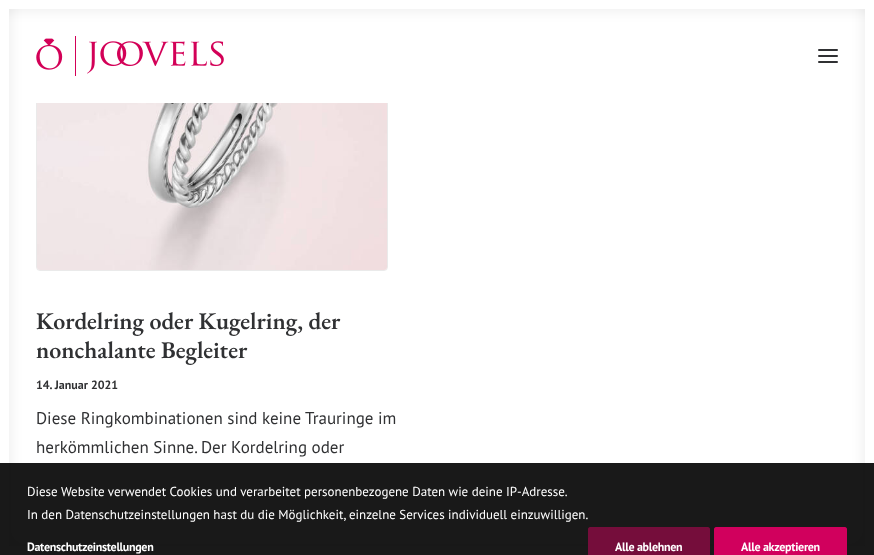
<svg xmlns="http://www.w3.org/2000/svg" width="874" height="555" viewBox="0 0 874 555">
  <style>
    .t1 { font: 600 24px EB Garamond; fill: #303133; }
    .t2 { font: bold 12px PT Sans; fill: #303133; }
    .t3 { font: 17px PT Sans; fill: #303133; }
    .t4 { font: 13px PT Sans; fill: #fff; }
    .t5 { font: bold 12px PT Sans; letter-spacing: -0.3px; fill: #fff; }
  </style>
  <rect width="100%" height="100%" fill="#fff"/>
  <rect x="0" y="0" width="874" height="9" fill="#0000001a" filter="blur(7px)"/>
  <rect x="0" y="0" width="9" height="555" fill="#0000001a" filter="blur(7px)"/>
  <rect x="0" y="546" width="874" height="9" fill="#0000001a" filter="blur(7px)"/>
  <rect x="0" y="0" width="9" height="555" fill="#fff"/>
  <rect x="865" y="0" width="9" height="555" fill="#0000001a" filter="blur(7px)"/>
  <rect x="9" y="0" width="856" height="9" fill="#fff"/>
  <rect x="865" y="0" width="9" height="546" fill="#fff"/>
  <rect x="9" y="546" width="865" height="9" fill="#fff"/>
  <rect x="36.5" y="36.5" width="351" height="234" rx="3.5" fill="none" stroke="#eaeaea"/>
  <rect x="36" y="36" width="352" height="67" fill="#fff"/>
  <image x="36" y="36" width="188" height="40" href="images/1.png"/>
  <rect x="818" y="55" width="20" height="2" rx="1" fill="#303133"/>
  <rect x="818" y="49" width="20" height="2" rx="1" fill="#303133"/>
  <rect x="818" y="61" width="20" height="2" rx="1" fill="#303133"/>
  <image x="37" y="103" width="350" height="167" href="images/2.png"/>
  <text x="36" y="329" class="t1">Kordelring oder Kugelring, der</text>
  <text x="36" y="358" class="t1">nonchalante Begleiter</text>
  <text x="36" y="389" class="t2">14. Januar 2021</text>
  <text x="36" y="424" class="t3">Diese Ringkombinationen sind keine Trauringe im</text>
  <text x="36" y="453" class="t3">herkömmlichen Sinne. Der Kordelring oder</text>
  <rect x="0" y="463" width="874" height="92" fill="#000000e6"/>
  <text x="27" y="496" class="t4">Diese Website verwendet Cookies und verarbeitet personenbezogene Daten wie deine IP-Adresse.</text>
  <text x="27" y="519" class="t4">In den Datenschutzeinstellungen hast du die Möglichkeit, einzelne Services individuell einzuwilligen.</text>
  <text x="27" y="551" class="t5">Datenschutzeinstellungen</text>
  <path d="M590 527H708C709 527 710 528 710 529V555H588V529C588 528 589 527 590 527Z" fill="#750d3b"/>
  <text x="615" y="551" class="t5">Alle ablehnen</text>
  <path d="M716 527H845C846 527 847 528 847 529V555H714V529C714 528 715 527 716 527Z" fill="#d1005d"/>
  <text x="741" y="551" class="t5">Alle akzeptieren</text>
</svg>
